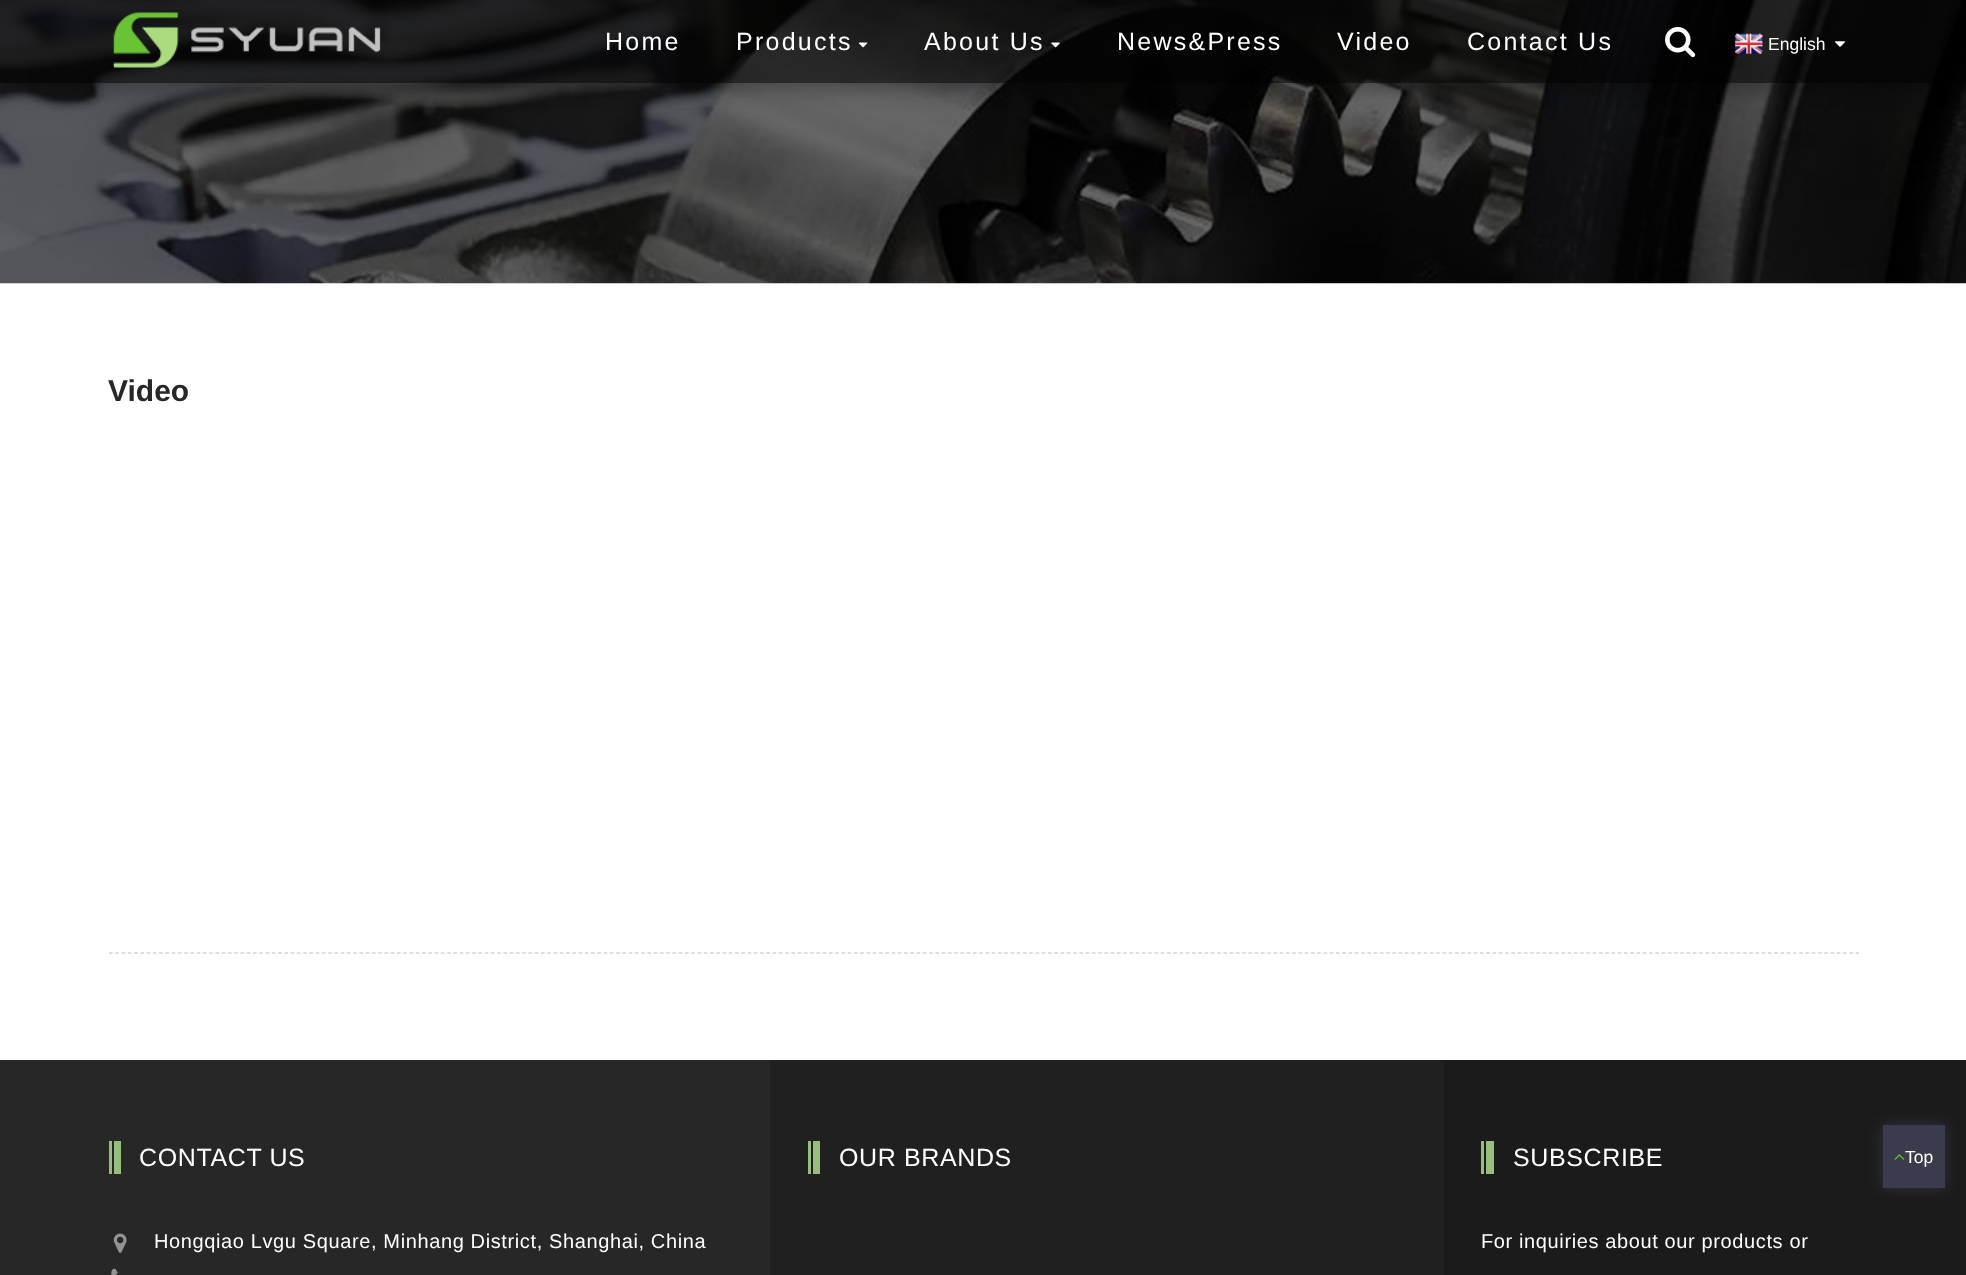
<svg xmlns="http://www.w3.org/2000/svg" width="1966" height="1275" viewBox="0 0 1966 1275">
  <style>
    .t1 { font: 25px Liberation Sans; letter-spacing: 2.25px; fill: #fff; }
    .t2 { font: 17.5px Liberation Sans; fill: #fff; }
    .t3 { font: bold 30px Liberation Sans; fill: #272727; }
    .t4 { font: 25px Liberation Sans; letter-spacing: 0.62px; fill: #fff; }
    .t5 { font: 20px Liberation Sans; letter-spacing: 0.62px; fill: #fff; }
  </style>
  <defs>
    <clipPath id="clip1"><path d="M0 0H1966V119H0ZM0 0H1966V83H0Z" clip-rule="evenodd"/></clipPath>
  </defs>
  <rect width="100%" height="100%" fill="#fff"/>
  <image x="0" y="0" width="1966" height="284" href="images/1.png"/>
  <g clip-path="url(#clip1)">
    <rect x="0" y="6" width="1966" height="83" fill="#0000004d" filter="blur(9.5px)"/>
  </g>
  <rect x="0" y="0" width="1966" height="83" fill="#00000099"/>
  <image x="113" y="12" width="268" height="56" href="images/2.png"/>
  <text x="605" y="50" class="t1">Home</text>
  <text x="736" y="50" class="t1">Products</text>
  <image x="858" y="42" width="10" height="6" href="images/3.png"/>
  <text x="924" y="50" class="t1">About Us</text>
  <image x="1051" y="42" width="9" height="6" href="images/4.png"/>
  <text x="1117" y="50" class="t1">News&amp;Press</text>
  <text x="1337" y="50" class="t1">Video</text>
  <text x="1467" y="50" class="t1">Contact Us</text>
  <image x="1665" y="27" width="31" height="31" href="images/5.png"/>
  <image x="1734" y="33" width="29" height="21" href="images/6.png"/>
  <text x="1768" y="50" class="t2">English</text>
  <image x="1835" y="41" width="10" height="6" href="images/7.png"/>
  <text x="108" y="401" class="t3">Video</text>
  <path d="M109 953H1859" fill="none" stroke="#c1c1c1" stroke-width="1.2" stroke-dasharray="3.75 2.51"/>
  <rect x="0" y="1060" width="770" height="215" fill="#272727"/>
  <rect x="1444" y="1060" width="522" height="215" fill="#1b1b1b"/>
  <rect x="109" y="1141" width="3" height="33" fill="#97bd7f"/>
  <rect x="114" y="1141" width="7" height="33" fill="#97bd7f"/>
  <text x="139" y="1166" class="t4">CONTACT US</text>
  <image x="113" y="1233" width="14" height="20" href="images/8.png"/>
  <text x="154" y="1248" class="t5">Hongqiao Lvgu Square, Minhang District, Shanghai, China</text>
  <image x="111" y="1268" width="7" height="7" href="images/9.png"/>
  <rect x="770" y="1060" width="674" height="215" fill="#202020"/>
  <rect x="808" y="1141" width="3" height="33" fill="#97bd7f"/>
  <rect x="813" y="1141" width="7" height="33" fill="#97bd7f"/>
  <text x="839" y="1166" class="t4">OUR BRANDS</text>
  <rect x="1481" y="1141" width="3" height="33" fill="#97bd7f"/>
  <rect x="1486" y="1141" width="8" height="33" fill="#97bd7f"/>
  <text x="1513" y="1166" class="t4">SUBSCRIBE</text>
  <text x="1481" y="1248" class="t5">For inquiries about our products or</text>
  <rect x="1883" y="1125" width="62" height="63" fill="#3a3b4dcc" filter="blur(7.5px)"/>
  <rect x="1883" y="1125" width="62" height="63" fill="#3a3b4d"/>
  <image x="1894" y="1154" width="11" height="6" href="images/10.png"/>
  <text x="1905" y="1163" class="t2">Top</text>
</svg>
